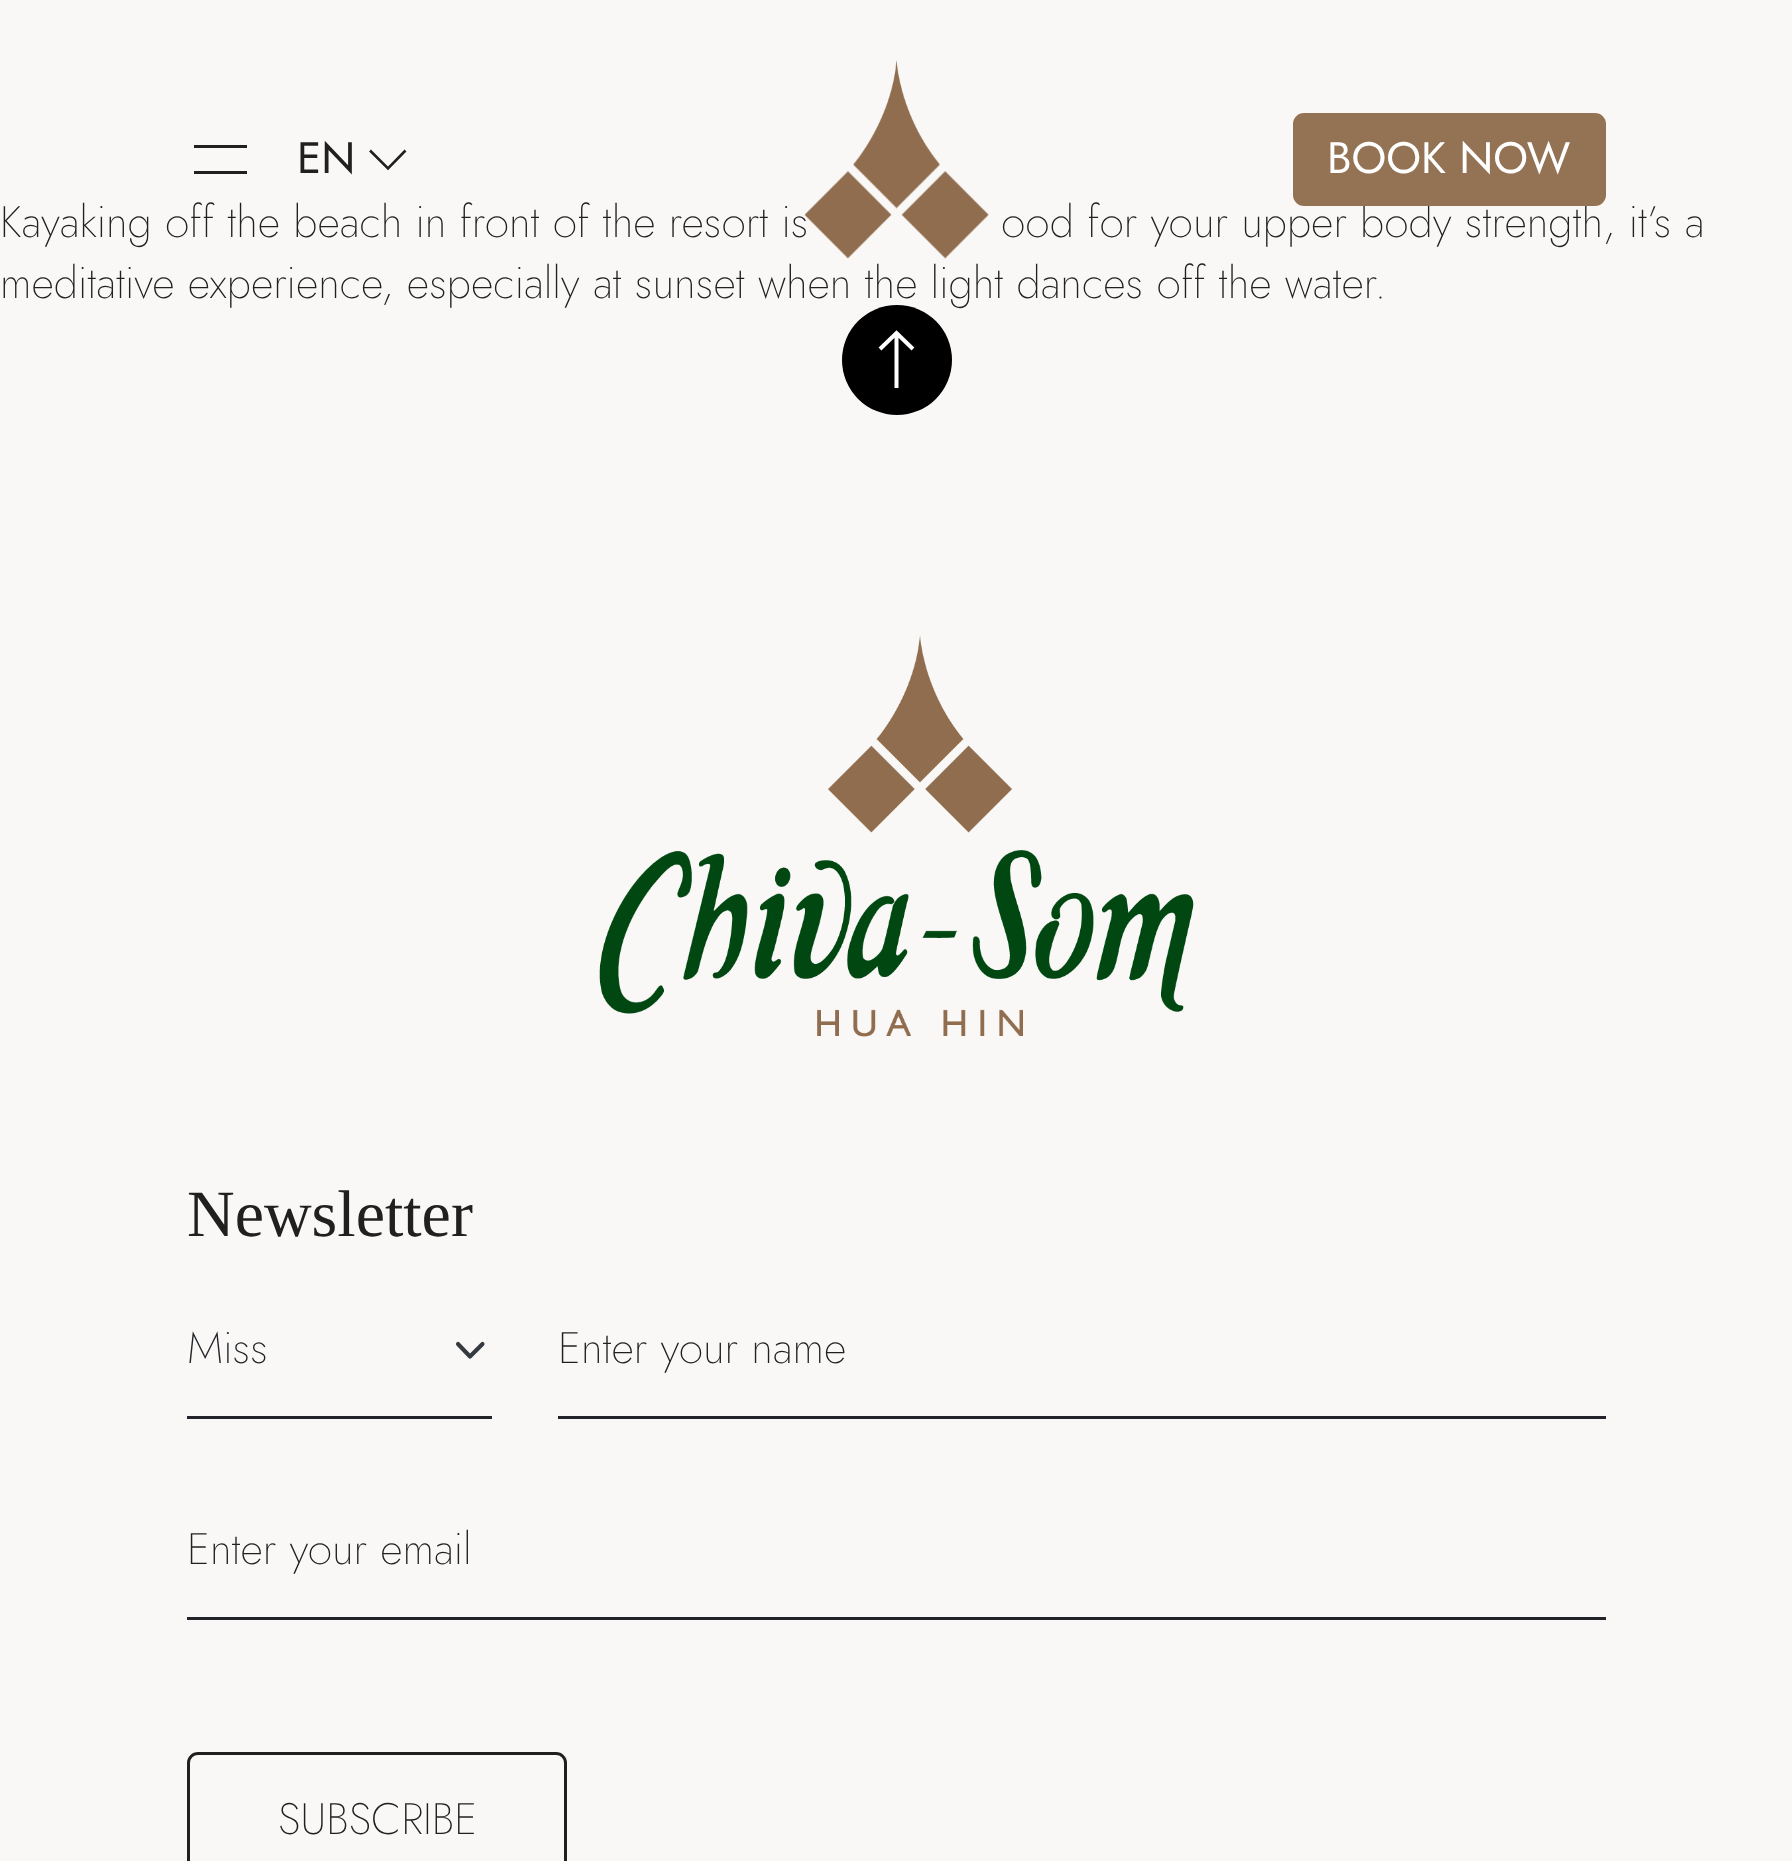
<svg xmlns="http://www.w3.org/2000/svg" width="1792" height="1861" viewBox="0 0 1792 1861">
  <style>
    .t1 { font: 44px Jost; fill: #202020; }
    .t2 { font: 200 44px Jost; fill: #202020; }
    .t3 { font: 44px Jost; fill: #fff; }
    .t4 { font: 66px Liberation Serif; fill: #202020; }
    .t5 { font: 200 44px Jost; fill: #212529; }
  </style>
  <rect width="100%" height="100%" fill="#faf8f6"/>
  <rect x="194" y="145" width="53" height="3" fill="#202020"/>
  <rect x="194" y="171" width="53" height="3" fill="#202020"/>
  <text x="297" y="173" class="t1">EN</text>
  <path d="M405.5 150.5L388 168.5L370 150.5" fill="none" stroke="#202020" stroke-width="2.6"/>
  <text x="0" y="237" class="t2">Kayaking off the beach in front of the resort is</text>
  <image x="804" y="60" width="185" height="199" href="images/1.png"/>
  <text x="1001" y="237" class="t2">ood for your upper body strength, it’s a</text>
  <rect x="1294.5" y="114.5" width="310" height="90" rx="9.5" fill="#947254" stroke="#947254" stroke-width="3"/>
  <text x="1327" y="173" class="t3">BOOK NOW</text>
  <text x="0" y="298" class="t2">meditative experience, especially at sunset when the light dances off the water.</text>
  <circle cx="897" cy="360" r="55" fill="#000"/>
  <path d="M896.5 388V333M880 349L896.5 333L913 349" fill="none" stroke="#fff" stroke-width="4"/>
  <image x="599" y="635" width="595" height="402" href="images/2.png"/>
  <text x="187" y="1236" class="t4">Newsletter</text>
  <path d="M458 1344L470 1356.5L482.5 1344" fill="none" stroke="#343a40" stroke-width="4.1" stroke-linecap="round" stroke-linejoin="round"/>
  <rect x="187" y="1416" width="305" height="3" fill="#212529"/>
  <text x="187" y="1363" class="t5">Miss</text>
  <rect x="558" y="1416" width="1048" height="3" fill="#212529"/>
  <text x="558" y="1363" class="t2">Enter your name</text>
  <rect x="187" y="1617" width="1419" height="3" fill="#212529"/>
  <text x="187" y="1564" class="t2">Enter your email</text>
  <rect x="188.5" y="1753.5" width="377" height="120" rx="9.5" fill="none" stroke="#202020" stroke-width="3"/>
  <text x="278" y="1834" class="t2">SUBSCRIBE</text>
</svg>
